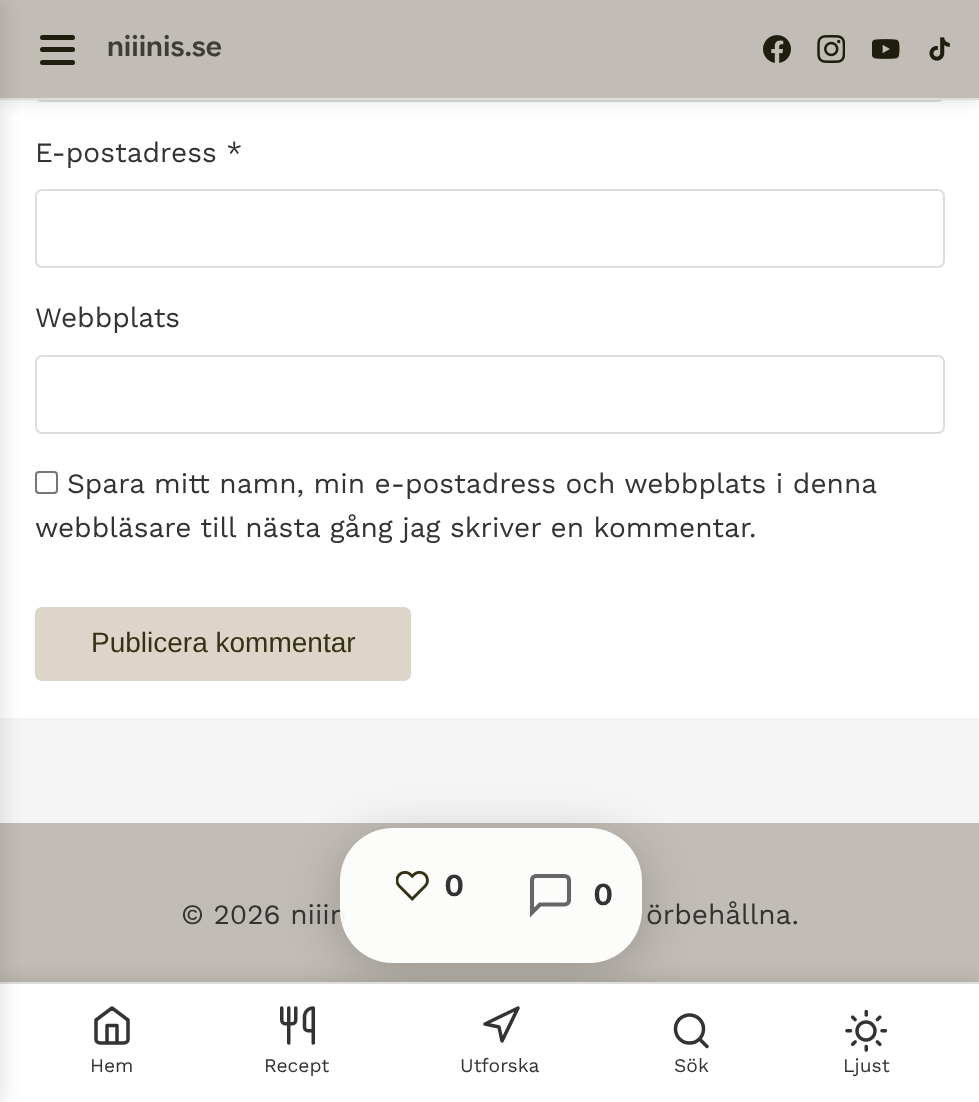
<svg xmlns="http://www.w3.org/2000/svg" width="979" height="1102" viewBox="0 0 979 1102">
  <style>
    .t1 { font: 28px Work Sans; fill: #333; }
    .t2 { font: 600 28px 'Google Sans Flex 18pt'; fill: #3f3d3a; }
    .t3 { font: 28px Liberation Sans; fill: #353114; }
    .t4 { font: 600 32px Work Sans; fill: #333; }
    .t5 { font: 19.25px Work Sans; fill: #333; }
  </style>
  <defs>
    <clipPath id="clip1"><path d="M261 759H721V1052H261ZM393 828H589C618.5 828 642 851.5 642 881V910C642 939.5 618.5 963 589 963H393C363.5 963 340 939.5 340 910V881C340 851.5 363.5 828 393 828Z" clip-rule="evenodd"/></clipPath>
  </defs>
  <rect width="100%" height="100%" fill="#f5f5f5"/>
  <rect x="0" y="100" width="979" height="618" fill="#fff"/>
  <rect x="36" y="24" width="908" height="77" rx="6" fill="none" stroke="#ddd" stroke-width="2"/>
  <rect x="0" y="4" width="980" height="99" fill="#0000001a" filter="blur(7px)"/>
  <rect x="0" y="98" width="979" height="2" fill="#ddd"/>
  <rect x="0" y="0" width="979" height="98" fill="#c1bcb5"/>
  <rect x="0" y="823" width="979" height="159" fill="#c1bcb5"/>
  <g clip-path="url(#clip1)">
    <rect x="340" y="838" width="302" height="135" rx="53" fill="#00000033" filter="blur(26px)"/>
  </g>
  <text x="181" y="924" class="t1">© 2026 niiin</text>
  <rect x="340" y="828" width="302" height="135" rx="53" fill="#fffffff2"/>
  <rect x="0" y="978" width="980" height="121" fill="#0000001a" filter="blur(9px)"/>
  <rect x="0" y="984" width="979" height="118" fill="#fff"/>
  <rect x="0" y="982" width="979" height="2" fill="#ddd"/>
  <rect x="-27" y="0" width="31" height="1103" fill="#0000001a" filter="blur(9px)"/>
  <rect x="40" y="35" width="35" height="5" rx="2.5" fill="#1f1d0e"/>
  <rect x="40" y="47" width="35" height="5" rx="2.5" fill="#1f1d0e"/>
  <rect x="40" y="60" width="35" height="5" rx="2.5" fill="#1f1d0e"/>
  <text x="107" y="56" class="t2">niiinis.se</text>
  <image x="763" y="35" width="28" height="28" href="images/1.png"/>
  <image x="817" y="35" width="28" height="28" href="images/2.png"/>
  <image x="872" y="39" width="28" height="20" href="images/3.png"/>
  <image x="929" y="37" width="21" height="24" href="images/4.png"/>
  <text x="35" y="162" class="t1">E-postadress *</text>
  <rect x="36" y="190" width="908" height="77" rx="6" fill="none" stroke="#ddd" stroke-width="2"/>
  <text x="35" y="327" class="t1">Webbplats</text>
  <rect x="36" y="356" width="908" height="77" rx="6" fill="none" stroke="#ddd" stroke-width="2"/>
  <rect x="36" y="472" width="21" height="21" rx="3" fill="none" stroke="#767676" stroke-width="2"/>
  <text x="67" y="493" class="t1">Spara mitt namn, min e-postadress och webbplats i denna</text>
  <text x="35" y="537" class="t1">webbläsare till nästa gång jag skriver en kommentar.</text>
  <rect x="35" y="607" width="376" height="74" rx="7" fill="#ddd4ca"/>
  <text x="91" y="652" class="t3">Publicera kommentar</text>
  <image x="396" y="870" width="33" height="31" href="images/5.png"/>
  <text x="444" y="896" class="t4">0</text>
  <path d="M569 900.5C569 902.5 567 904.5 564.5 904.5H540L532 912.5V880C532 877.5 534 876 536 876H564.5C567 876 569 877.5 569 880Z" fill="none" stroke="#666" stroke-width="4.1"/>
  <text x="593" y="905" class="t4">0</text>
  <text x="646" y="924" class="t1">örbehållna.</text>
  <path d="M96 1020L112 1008L128 1020V1039.5C128 1041.5 126 1043 124 1043H100C98 1043 96 1041.5 96 1039.5ZM107 1043V1025.5H117V1043" fill="none" stroke="#333" stroke-width="3.5" stroke-linecap="round" stroke-linejoin="round"/>
  <text x="90" y="1072" class="t5">Hem</text>
  <image x="280" y="1006" width="35" height="39" href="images/6.png"/>
  <text x="264" y="1072" class="t5">Recept</text>
  <path d="M485 1024L518 1008L502 1041L499 1027Z" fill="none" stroke="#333" stroke-width="3.5" stroke-linecap="round" stroke-linejoin="round"/>
  <text x="460" y="1072" class="t5">Utforska</text>
  <circle cx="689.5" cy="1029" r="14" fill="none" stroke="#333" stroke-width="3.5"/>
  <path d="M707 1046.5L699.5 1039" fill="none" stroke="#333" stroke-width="3.5" stroke-linecap="round" stroke-linejoin="round"/>
  <text x="674" y="1072" class="t5">Sök</text>
  <image x="845" y="1010" width="42" height="42" href="images/7.png"/>
  <text x="843" y="1072" class="t5">Ljust</text>
</svg>
